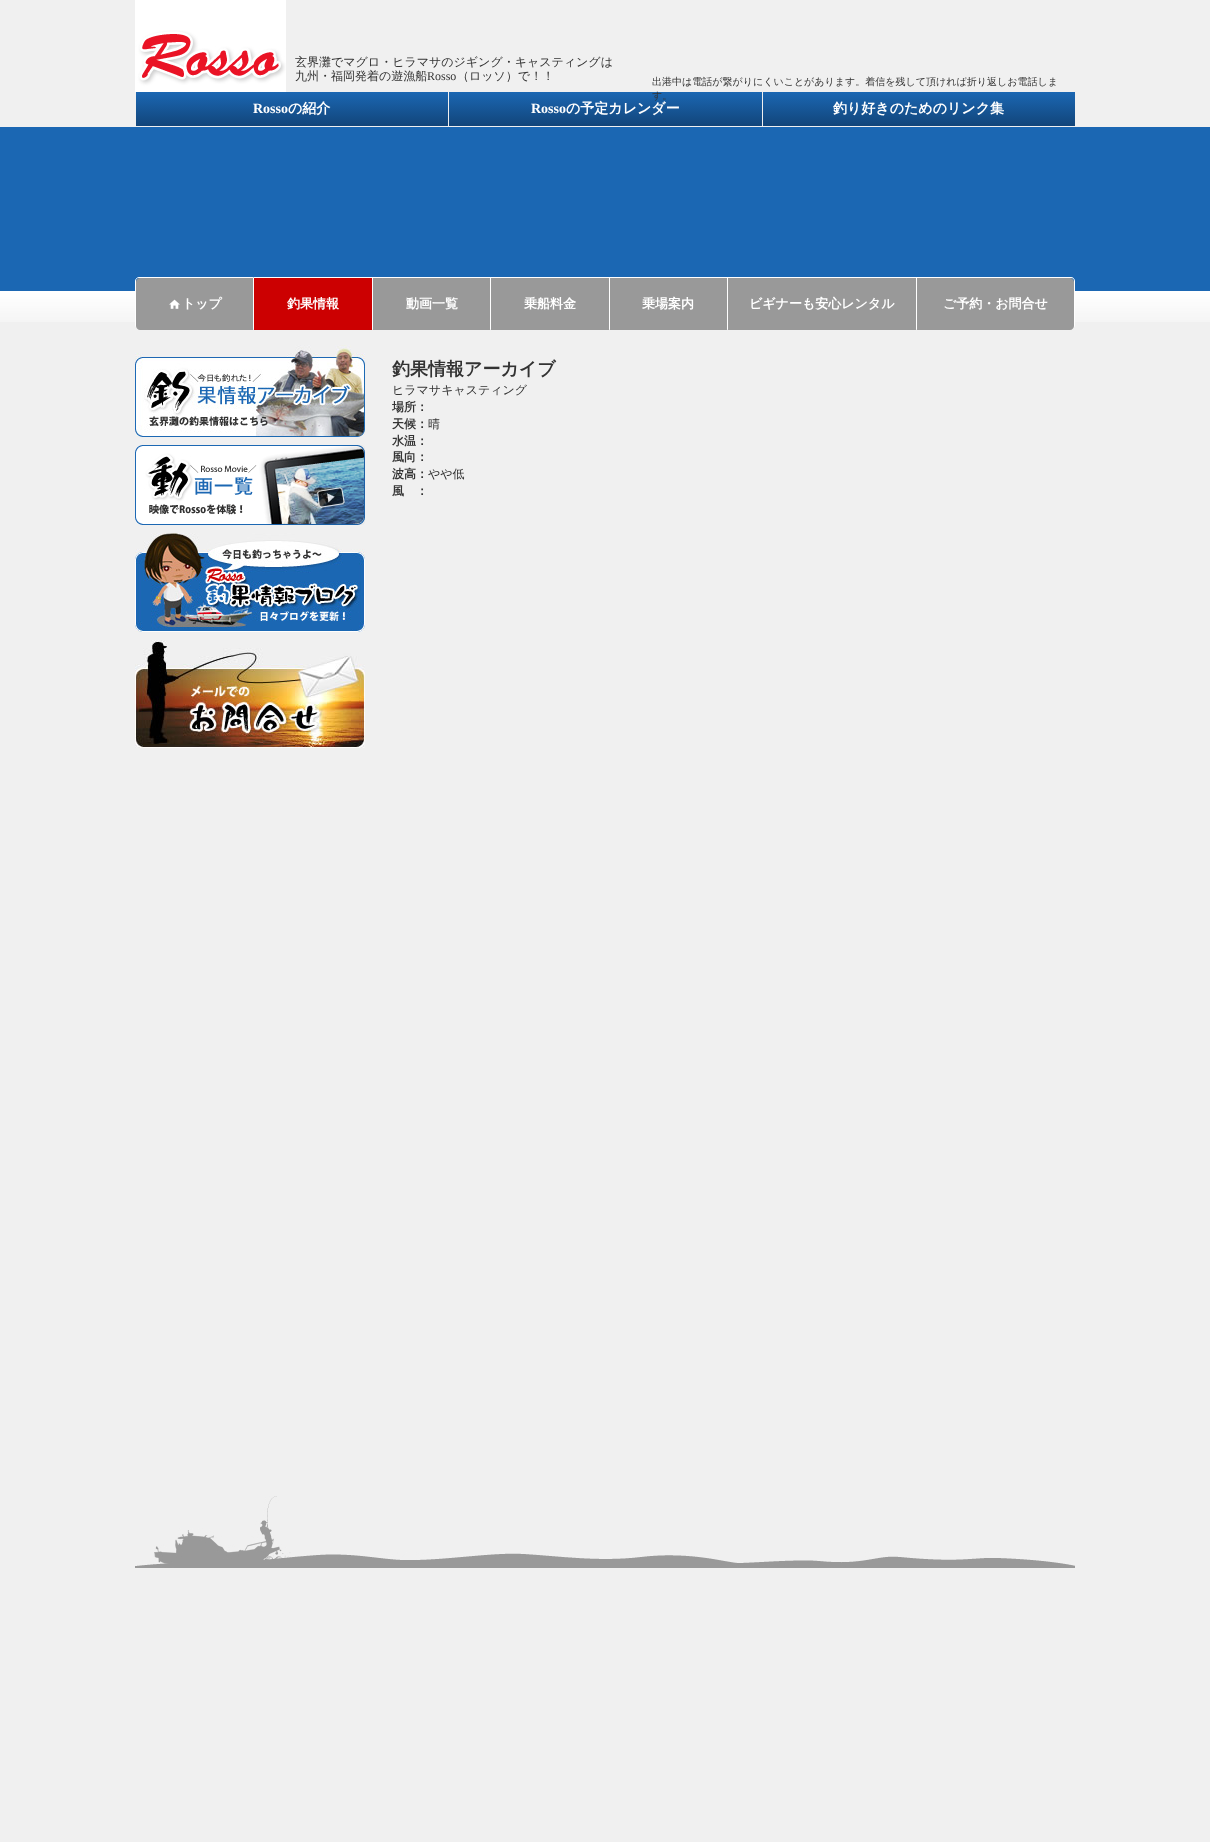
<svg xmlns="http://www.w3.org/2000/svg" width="1210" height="1842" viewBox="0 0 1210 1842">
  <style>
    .t1 { font: 500 12px WenQuanYi Zen Hei; fill: #333; }
    .t2 { font: 12px Liberation Serif; fill: #333; }
    .t3 { font: 500 10px WenQuanYi Zen Hei; fill: #333; }
    .t4 { font: bold 14px Liberation Serif; fill: #fff; }
    .t5 { font: bold 14px WenQuanYi Zen Hei; fill: #fff; }
    .t6 { font: bold 13px WenQuanYi Zen Hei; fill: #fff; }
    .t7 { font: bold 18px WenQuanYi Zen Hei; fill: #333; }
    .t8 { font: bold 12px WenQuanYi Zen Hei; fill: #333; }
  </style>
  <defs>
    <linearGradient id="g1" gradientUnits="userSpaceOnUse" x1="606" y1="92" x2="606" y2="126"><stop offset="0" stop-color="#1b67b3"/><stop offset="1" stop-color="#12457a"/></linearGradient>
    <linearGradient id="g2" gradientUnits="userSpaceOnUse" x1="292" y1="92" x2="292" y2="126"><stop offset="0" stop-color="#1b67b3"/><stop offset="1" stop-color="#12457a"/></linearGradient>
    <linearGradient id="g3" gradientUnits="userSpaceOnUse" x1="919" y1="92" x2="919" y2="126"><stop offset="0" stop-color="#1b67b3"/><stop offset="1" stop-color="#12457a"/></linearGradient>
  </defs>
  <rect width="100%" height="100%" fill="#f0f0f0"/>
  <image x="135" y="0" width="151" height="92" href="images/1.png"/>
  <text x="295" y="66" class="t1">玄界灘でマグロ・ヒラマサのジギング・キャスティングは</text>
  <text x="295" y="80" class="t1">九州・福岡発着の遊漁船</text>
  <text x="427" y="80" class="t2">Rosso</text>
  <text x="457" y="80" class="t1">（ロッソ）で！！</text>
  <text x="652" y="85" class="t3">出港中は電話が繋がりにくいことがあります。着信を残して頂ければ折り返しお電話しま</text>
  <rect x="449" y="92" width="313" height="34" fill="url(#g1)"/>
  <text x="652" y="99" class="t3">す。</text>
  <rect x="136" y="92" width="312" height="34" fill="url(#g2)"/>
  <text x="253" y="113" class="t4">Rosso</text>
  <text x="288" y="113" class="t5">の紹介</text>
  <text x="531" y="113" class="t4">Rosso</text>
  <text x="566" y="113" class="t5">の予定カレンダー</text>
  <rect x="763" y="92" width="312" height="34" fill="url(#g3)"/>
  <text x="833" y="113" class="t5">釣り好きのためのリンク集</text>
  <image x="0" y="127" width="1210" height="195" href="images/2.png"/>
  <path d="M139 277.5H253.5V328.5H139C137 328.5 135.5 327 135.5 325V281C135.5 279 137 277.5 139 277.5Z" fill="none" stroke="#fff"/>
  <path d="M140 278H253V330H140C138 330 136 328 136 326V282C136 280 138 278 140 278Z" fill="#999"/>
  <image x="169" y="299" width="11" height="10" href="images/3.png"/>
  <text x="182" y="308" class="t6">トップ</text>
  <rect x="254" y="277" width="663" height="1" fill="#fff"/>
  <rect x="372" y="277" width="1" height="52" fill="#fff"/>
  <rect x="254" y="278" width="118" height="52" fill="#cc0001"/>
  <text x="287" y="308" class="t6">釣果情報</text>
  <rect x="490" y="277" width="1" height="52" fill="#fff"/>
  <rect x="373" y="278" width="117" height="52" fill="#999"/>
  <text x="406" y="308" class="t6">動画一覧</text>
  <rect x="609" y="277" width="1" height="52" fill="#fff"/>
  <rect x="491" y="278" width="118" height="52" fill="#999"/>
  <text x="524" y="308" class="t6">乗船料金</text>
  <rect x="727" y="277" width="1" height="52" fill="#fff"/>
  <rect x="610" y="278" width="117" height="52" fill="#999"/>
  <text x="642" y="308" class="t6">乗場案内</text>
  <rect x="916" y="277" width="1" height="52" fill="#fff"/>
  <rect x="728" y="278" width="188" height="52" fill="#999"/>
  <text x="749" y="308" class="t6">ビギナーも安心レンタル</text>
  <path d="M917 277H1071C1073 277 1075 279 1075 281V325C1075 327 1073 329 1071 329H917ZM917 278H1071C1073 278 1074 279 1074 281V325C1074 327 1073 328 1071 328H917Z" fill="#fff" fill-rule="evenodd"/>
  <path d="M917 278H1070C1072 278 1074 280 1074 282V326C1074 328 1072 330 1070 330H917Z" fill="#999"/>
  <text x="943" y="308" class="t6">ご予約・お問合せ</text>
  <image x="135" y="345" width="230" height="92" href="images/4.png"/>
  <image x="135" y="445" width="230" height="80" href="images/5.png"/>
  <image x="135" y="533" width="230" height="99" href="images/6.png"/>
  <image x="135" y="640" width="230" height="108" href="images/7.png"/>
  <text x="392" y="375" class="t7">釣果情報アーカイブ</text>
  <text x="392" y="394" class="t1">ヒラマサキャスティング</text>
  <text x="392" y="411" class="t8">場所：</text>
  <text x="392" y="428" class="t8">天候：</text>
  <text x="428" y="428" class="t1">晴</text>
  <text x="392" y="445" class="t8">水温：</text>
  <text x="392" y="461" class="t8">風向：</text>
  <text x="392" y="478" class="t8">波高：</text>
  <text x="428" y="478" class="t1">やや低</text>
  <text x="392" y="495" class="t8">風　：</text>
  <image x="135" y="1496" width="940" height="72" href="images/8.png"/>
</svg>
